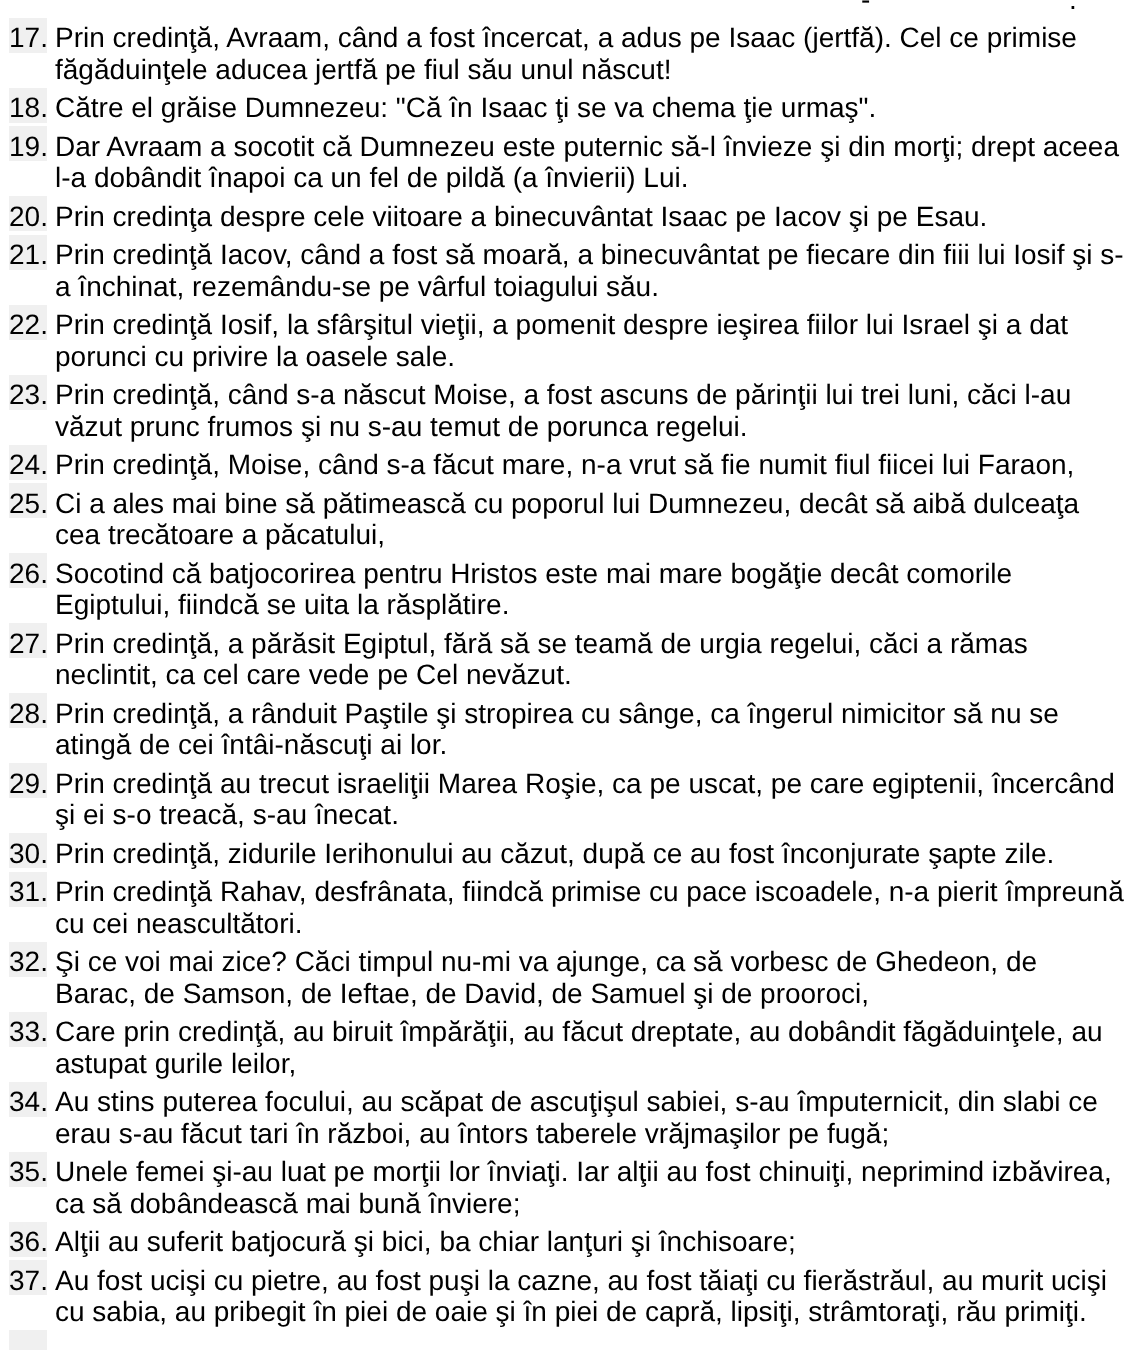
<svg xmlns="http://www.w3.org/2000/svg" width="1132" height="1350" viewBox="0 0 1132 1350">
  <style>
    .t1 { font: 28px Liberation Sans; fill: #000; }
  </style>
  <rect width="100%" height="100%" fill="#fff"/>
  <text x="861" y="9" class="t1">-</text>
  <text x="1069" y="9" class="t1">.</text>
  <rect x="9" y="18" width="38" height="35" fill="#f0f0f0"/>
  <text x="9" y="47" class="t1">17.</text>
  <text x="55" y="47" class="t1">Prin credinţă, Avraam, când a fost încercat, a adus pe Isaac (jertfă). Cel ce primise</text>
  <text x="55" y="79" class="t1">făgăduinţele aducea jertfă pe fiul său unul născut!</text>
  <rect x="9" y="88" width="38" height="35" fill="#f0f0f0"/>
  <text x="9" y="117" class="t1">18.</text>
  <text x="55" y="117" class="t1">Către el grăise Dumnezeu: "Că în Isaac ţi se va chema ţie urmaş".</text>
  <rect x="9" y="126" width="38" height="35" fill="#f0f0f0"/>
  <text x="9" y="156" class="t1">19.</text>
  <text x="55" y="156" class="t1">Dar Avraam a socotit că Dumnezeu este puternic să-l învieze şi din morţi; drept aceea</text>
  <text x="55" y="187" class="t1">l-a dobândit înapoi ca un fel de pildă (a învierii) Lui.</text>
  <rect x="9" y="196" width="38" height="35" fill="#f0f0f0"/>
  <text x="9" y="226" class="t1">20.</text>
  <text x="55" y="226" class="t1">Prin credinţa despre cele viitoare a binecuvântat Isaac pe Iacov şi pe Esau.</text>
  <rect x="9" y="235" width="38" height="35" fill="#f0f0f0"/>
  <text x="9" y="264" class="t1">21.</text>
  <text x="55" y="264" class="t1">Prin credinţă Iacov, când a fost să moară, a binecuvântat pe fiecare din fiii lui Iosif şi s-</text>
  <text x="55" y="296" class="t1">a închinat, rezemându-se pe vârful toiagului său.</text>
  <rect x="9" y="305" width="38" height="35" fill="#f0f0f0"/>
  <text x="9" y="334" class="t1">22.</text>
  <text x="55" y="334" class="t1">Prin credinţă Iosif, la sfârşitul vieţii, a pomenit despre ieşirea fiilor lui Israel şi a dat</text>
  <text x="55" y="366" class="t1">porunci cu privire la oasele sale.</text>
  <rect x="9" y="375" width="38" height="35" fill="#f0f0f0"/>
  <text x="9" y="404" class="t1">23.</text>
  <text x="55" y="404" class="t1">Prin credinţă, când s-a născut Moise, a fost ascuns de părinţii lui trei luni, căci l-au</text>
  <text x="55" y="436" class="t1">văzut prunc frumos şi nu s-au temut de porunca regelui.</text>
  <rect x="9" y="445" width="38" height="35" fill="#f0f0f0"/>
  <text x="9" y="474" class="t1">24.</text>
  <text x="55" y="474" class="t1">Prin credinţă, Moise, când s-a făcut mare, n-a vrut să fie numit fiul fiicei lui Faraon,</text>
  <rect x="9" y="483" width="38" height="35" fill="#f0f0f0"/>
  <text x="9" y="513" class="t1">25.</text>
  <text x="55" y="513" class="t1">Ci a ales mai bine să pătimească cu poporul lui Dumnezeu, decât să aibă dulceaţa</text>
  <text x="55" y="544" class="t1">cea trecătoare a păcatului,</text>
  <rect x="9" y="553" width="38" height="35" fill="#f0f0f0"/>
  <text x="9" y="583" class="t1">26.</text>
  <text x="55" y="583" class="t1">Socotind că batjocorirea pentru Hristos este mai mare bogăţie decât comorile</text>
  <text x="55" y="614" class="t1">Egiptului, fiindcă se uita la răsplătire.</text>
  <rect x="9" y="623" width="38" height="35" fill="#f0f0f0"/>
  <text x="9" y="653" class="t1">27.</text>
  <text x="55" y="653" class="t1">Prin credinţă, a părăsit Egiptul, fără să se teamă de urgia regelui, căci a rămas</text>
  <text x="55" y="684" class="t1">neclintit, ca cel care vede pe Cel nevăzut.</text>
  <rect x="9" y="693" width="38" height="35" fill="#f0f0f0"/>
  <text x="9" y="723" class="t1">28.</text>
  <text x="55" y="723" class="t1">Prin credinţă, a rânduit Paştile şi stropirea cu sânge, ca îngerul nimicitor să nu se</text>
  <text x="55" y="754" class="t1">atingă de cei întâi-născuţi ai lor.</text>
  <rect x="9" y="763" width="38" height="35" fill="#f0f0f0"/>
  <text x="9" y="793" class="t1">29.</text>
  <text x="55" y="793" class="t1">Prin credinţă au trecut israeliţii Marea Roşie, ca pe uscat, pe care egiptenii, încercând</text>
  <text x="55" y="824" class="t1">şi ei s-o treacă, s-au înecat.</text>
  <rect x="9" y="833" width="38" height="35" fill="#f0f0f0"/>
  <text x="9" y="863" class="t1">30.</text>
  <text x="55" y="863" class="t1">Prin credinţă, zidurile Ierihonului au căzut, după ce au fost înconjurate şapte zile.</text>
  <rect x="9" y="872" width="38" height="35" fill="#f0f0f0"/>
  <text x="9" y="901" class="t1">31.</text>
  <text x="55" y="901" class="t1">Prin credinţă Rahav, desfrânata, fiindcă primise cu pace iscoadele, n-a pierit împreună</text>
  <text x="55" y="933" class="t1">cu cei neascultători.</text>
  <rect x="9" y="942" width="38" height="35" fill="#f0f0f0"/>
  <text x="9" y="971" class="t1">32.</text>
  <text x="55" y="971" class="t1">Şi ce voi mai zice? Căci timpul nu-mi va ajunge, ca să vorbesc de Ghedeon, de</text>
  <text x="55" y="1003" class="t1">Barac, de Samson, de Ieftae, de David, de Samuel şi de prooroci,</text>
  <rect x="9" y="1012" width="38" height="35" fill="#f0f0f0"/>
  <text x="9" y="1041" class="t1">33.</text>
  <text x="55" y="1041" class="t1">Care prin credinţă, au biruit împărăţii, au făcut dreptate, au dobândit făgăduinţele, au</text>
  <text x="55" y="1073" class="t1">astupat gurile leilor,</text>
  <rect x="9" y="1082" width="38" height="35" fill="#f0f0f0"/>
  <text x="9" y="1111" class="t1">34.</text>
  <text x="55" y="1111" class="t1">Au stins puterea focului, au scăpat de ascuţişul sabiei, s-au împuternicit, din slabi ce</text>
  <text x="55" y="1143" class="t1">erau s-au făcut tari în război, au întors taberele vrăjmaşilor pe fugă;</text>
  <rect x="9" y="1152" width="38" height="35" fill="#f0f0f0"/>
  <text x="9" y="1181" class="t1">35.</text>
  <text x="55" y="1181" class="t1">Unele femei şi-au luat pe morţii lor înviaţi. Iar alţii au fost chinuiţi, neprimind izbăvirea,</text>
  <text x="55" y="1213" class="t1">ca să dobândească mai bună înviere;</text>
  <rect x="9" y="1222" width="38" height="35" fill="#f0f0f0"/>
  <text x="9" y="1251" class="t1">36.</text>
  <text x="55" y="1251" class="t1">Alţii au suferit batjocură şi bici, ba chiar lanţuri şi închisoare;</text>
  <rect x="9" y="1260" width="38" height="35" fill="#f0f0f0"/>
  <text x="9" y="1290" class="t1">37.</text>
  <text x="55" y="1290" class="t1">Au fost ucişi cu pietre, au fost puşi la cazne, au fost tăiaţi cu fierăstrăul, au murit ucişi</text>
  <text x="55" y="1321" class="t1">cu sabia, au pribegit în piei de oaie şi în piei de capră, lipsiţi, strâmtoraţi, rău primiţi.</text>
  <rect x="9" y="1330" width="38" height="20" fill="#f0f0f0"/>
</svg>
